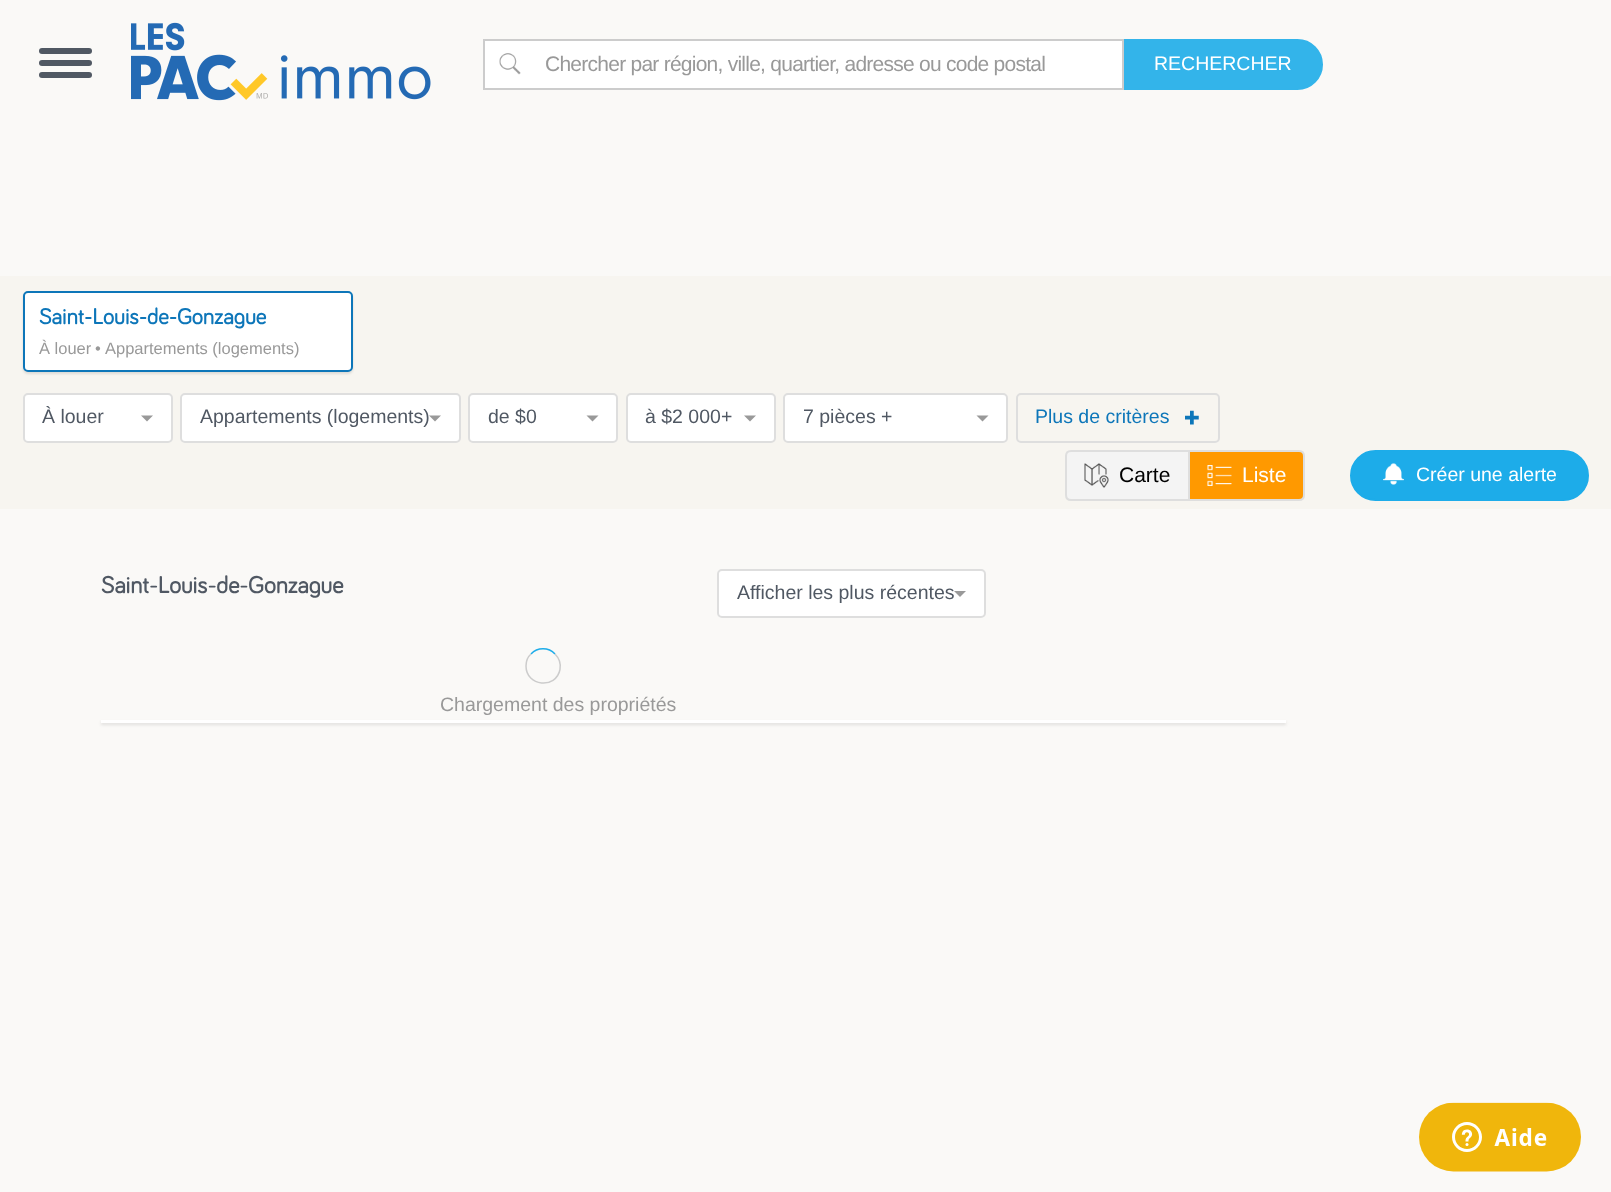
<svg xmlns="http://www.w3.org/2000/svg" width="1611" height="1192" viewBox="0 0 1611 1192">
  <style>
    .t1 { font: 21px Liberation Sans; letter-spacing: -0.75px; fill: #999; }
    .t2 { font: 19.5px Liberation Sans; fill: #fff; }
    .t3 { font: bold 22.5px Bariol; fill: #0d76b9; }
    .t4 { font: 16.5px Liberation Sans; fill: #999; }
    .t5 { font: 19.5px Liberation Sans; fill: #505863; }
    .t6 { font: 19.5px Liberation Sans; fill: #0d76b9; }
    .t7 { font: 21px Liberation Sans; fill: #000; }
    .t8 { font: 21px Liberation Sans; fill: #fff; }
    .t9 { font: bold 24px Bariol; fill: #505863; }
    .t10 { font: 19.5px Liberation Sans; fill: #999; }
  </style>
  <rect width="100%" height="100%" fill="#faf9f7"/>
  <rect x="39" y="48" width="53" height="6" rx="3" fill="#505863"/>
  <rect x="39" y="60" width="53" height="6" rx="3" fill="#505863"/>
  <rect x="39" y="72" width="53" height="6" rx="3" fill="#505863"/>
  <image x="131" y="22" width="300" height="79" href="images/1.png"/>
  <path d="M1123 40H1297.5C1311 40 1322 51 1322 64.5C1322 78 1311 89 1297.5 89H1123Z" fill="#33b4ea" stroke="#33b4ea" stroke-width="2"/>
  <rect x="484" y="40" width="639" height="49" fill="#fff" stroke="#ccc" stroke-width="2"/>
  <image x="499" y="53" width="22" height="22" href="images/2.png"/>
  <text x="545" y="71" class="t1">Chercher par région, ville, quartier, adresse ou code postal</text>
  <text x="1154" y="70" class="t2">RECHERCHER</text>
  <rect x="0" y="276" width="1611" height="233" fill="#f7f5f0"/>
  <rect x="23" y="293" width="330" height="81" rx="5" fill="#0000001a" filter="blur(1px)"/>
  <rect x="24" y="292" width="328" height="79" rx="4" fill="#fff" stroke="#0d76b9" stroke-width="2"/>
  <text x="39" y="324" class="t3">Saint-Louis-de-Gonzague</text>
  <text x="39" y="354" class="t4">À louer</text>
  <text x="95" y="354" class="t4">•</text>
  <text x="105" y="354" class="t4">Appartements (logements)</text>
  <rect x="24" y="394" width="148" height="48" rx="4" fill="#fff" stroke="#dedede" stroke-width="2"/>
  <text x="42" y="423" class="t5">À louer</text>
  <path d="M141 415.5H153L147 421.5Z" fill="#999"/>
  <rect x="181" y="394" width="279" height="48" rx="4" fill="#fff" stroke="#dedede" stroke-width="2"/>
  <text x="200" y="423" class="t5">Appartements (logements)</text>
  <path d="M429 415.5H441L435 421.5Z" fill="#999"/>
  <rect x="469" y="394" width="148" height="48" rx="4" fill="#fff" stroke="#dedede" stroke-width="2"/>
  <text x="488" y="423" class="t5">de $0</text>
  <path d="M586.5 415.5H598.5L592.5 421.5Z" fill="#999"/>
  <rect x="627" y="394" width="148" height="48" rx="4" fill="#fff" stroke="#dedede" stroke-width="2"/>
  <text x="645" y="423" class="t5">à $2 000+</text>
  <path d="M744 415.5H756L750 421.5Z" fill="#999"/>
  <rect x="784" y="394" width="223" height="48" rx="4" fill="#fff" stroke="#dedede" stroke-width="2"/>
  <text x="803" y="423" class="t5">7 pièces +</text>
  <path d="M976.5 415.5H988.5L982.5 421.5Z" fill="#999"/>
  <rect x="1017" y="394" width="202" height="48" rx="4" fill="none" stroke="#dedede" stroke-width="2"/>
  <text x="1035" y="423" class="t6">Plus de critères</text>
  <image x="1185" y="410" width="14" height="15" href="images/3.png"/>
  <path d="M1071 451H1189V500H1071C1068 500 1066 498 1066 495V456C1066 453 1068 451 1071 451Z" fill="#f4f4f4" stroke="#dedede" stroke-width="2"/>
  <image x="1084" y="463" width="25" height="25" href="images/4.png"/>
  <text x="1119" y="482" class="t7">Carte</text>
  <path d="M1189 451H1299C1302 451 1304 453 1304 456V495C1304 498 1302 500 1299 500H1189Z" fill="#f90" stroke="#dedede" stroke-width="2"/>
  <image x="1207" y="465" width="25" height="21" href="images/5.png"/>
  <text x="1242" y="482" class="t8">Liste</text>
  <rect x="1351" y="451" width="237" height="49" rx="24.5" fill="#1dace9" stroke="#1dace9" stroke-width="2"/>
  <image x="1383" y="463" width="21" height="22" href="images/6.png"/>
  <text x="1416" y="481" class="t2">Créer une alerte</text>
  <text x="101" y="593" class="t9">Saint-Louis-de-Gonzague</text>
  <rect x="718" y="570" width="267" height="47" rx="4" fill="#fff" stroke="#dedede" stroke-width="2"/>
  <text x="737" y="599" class="t5">Afficher les plus récentes</text>
  <path d="M954 591H966L960 597Z" fill="#999"/>
  <path d="M531 654C537.5 647 548.5 647 555 654" fill="none" stroke="#1dace9" stroke-width="1.5"/>
  <path d="M555 654C559 658 561 664 560 669.5C556 689.5 526 686.5 526 666C526 661.5 527.5 657 531 654" fill="none" stroke="#ccc" stroke-width="1.5"/>
  <text x="440" y="711" class="t10">Chargement des propriétés</text>
  <rect x="101" y="722" width="1185" height="3" fill="#0000001a" filter="blur(1.5px)"/>
  <rect x="101" y="720" width="1185" height="3" fill="#fff"/>
  <image x="1419" y="1102" width="162" height="70" href="images/7.png"/>
</svg>
